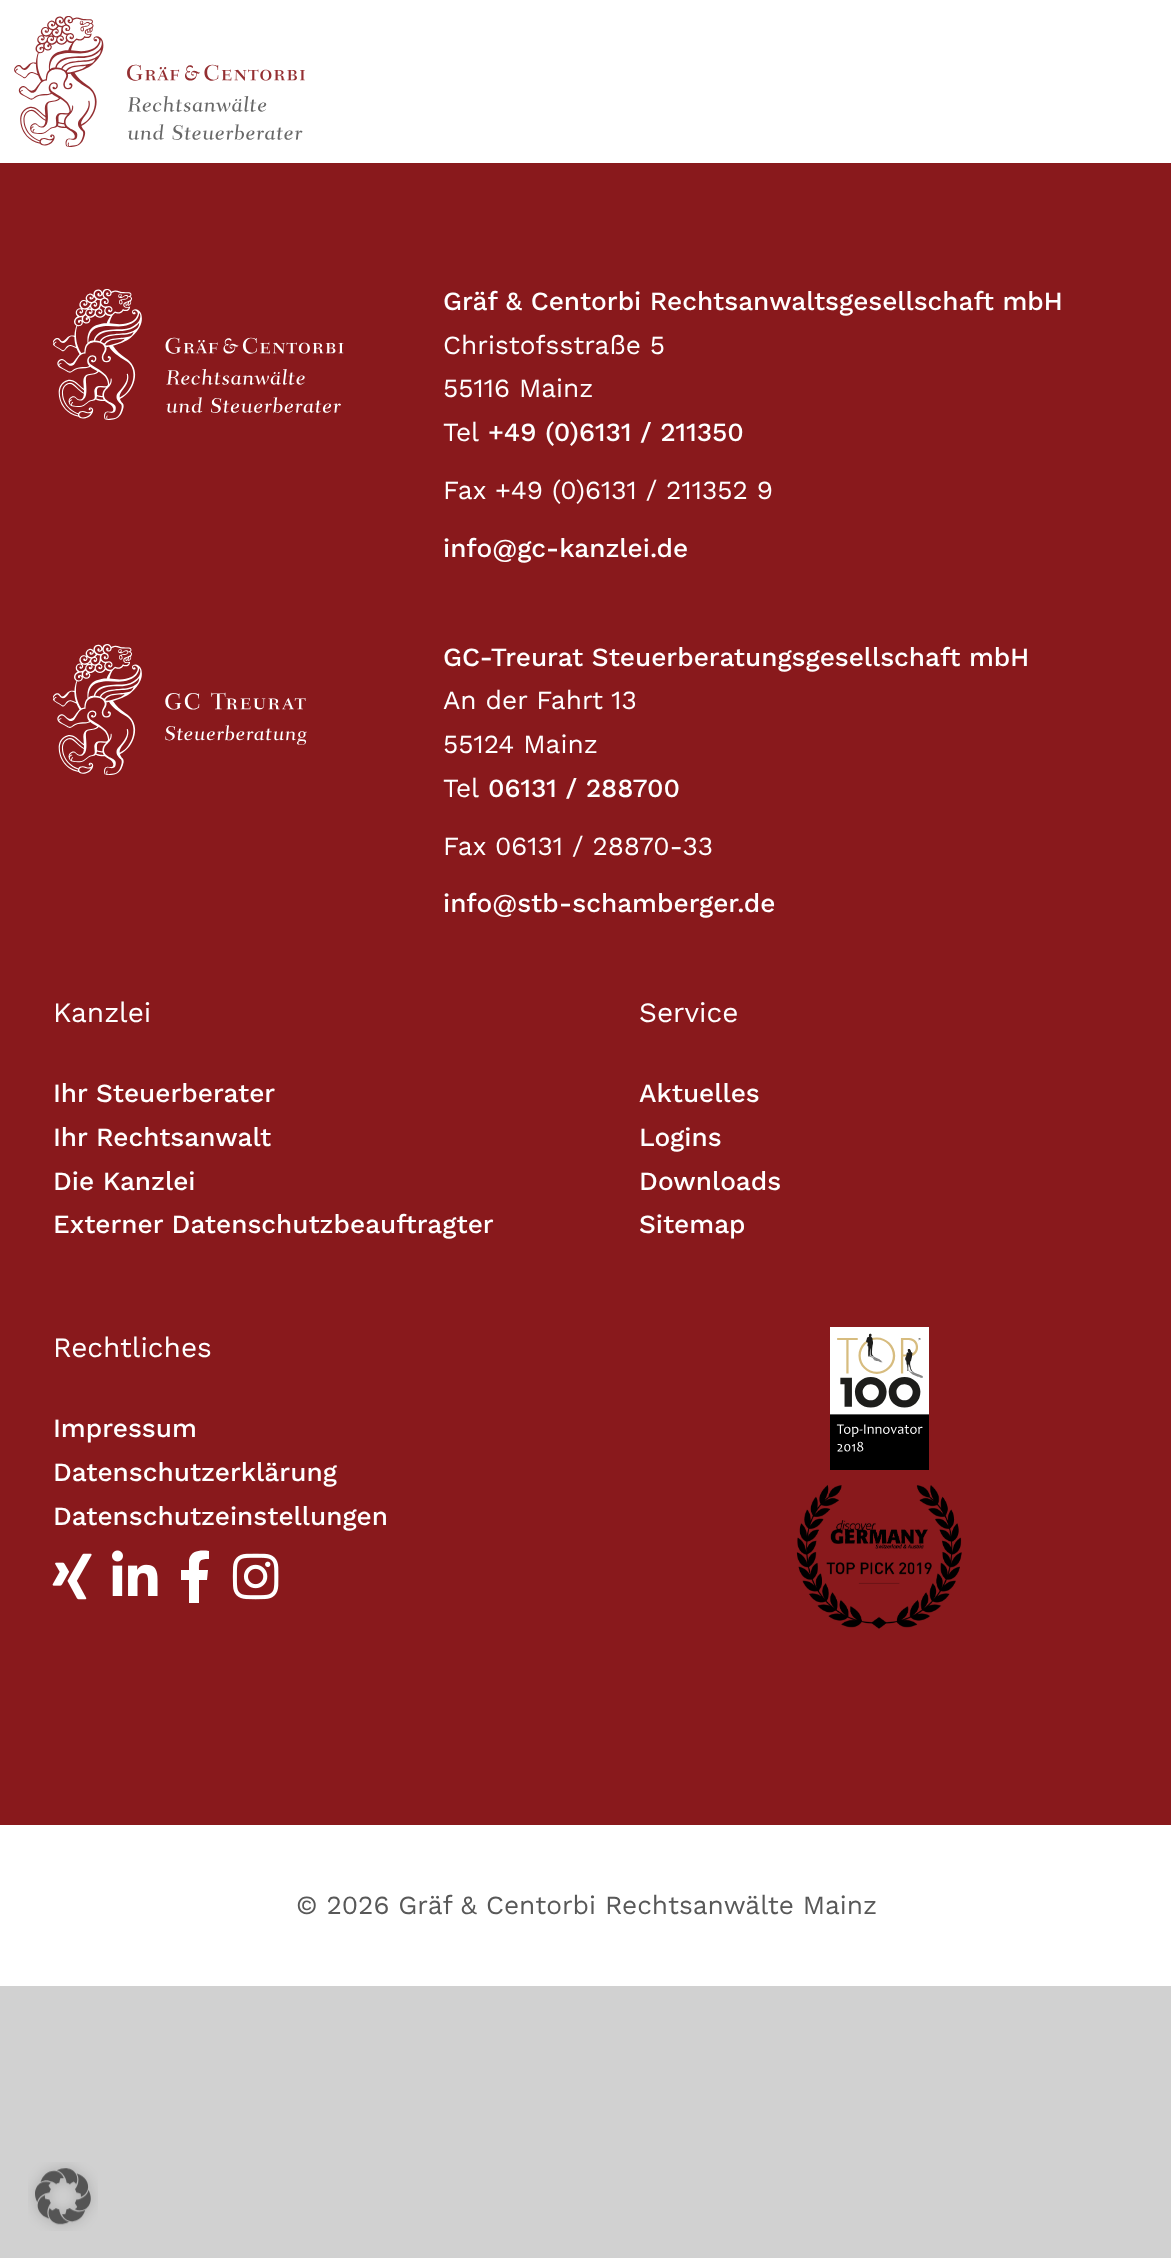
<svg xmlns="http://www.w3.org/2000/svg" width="1171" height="2258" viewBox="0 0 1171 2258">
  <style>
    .t1 { font: 500 26.25px Work Sans; fill: #fff; }
    .t2 { font: 26.25px Work Sans; fill: #fff; }
    .t3 { font: 28px Work Sans; fill: #fff; }
    .t4 { font: 26.25px Work Sans; fill: #585858; }
  </style>
  <rect width="100%" height="100%" fill="#d1d1d1"/>
  <rect x="0" y="0" width="1171" height="1986" fill="#fff"/>
  <image x="14" y="16" width="291" height="131" href="images/1.png"/>
  <rect x="0" y="163" width="1171" height="1662" fill="#89191c"/>
  <image x="53" y="289" width="291" height="131" href="images/2.png"/>
  <text x="443" y="310" class="t1">Gräf &amp; Centorbi Rechtsanwaltsgesellschaft mbH</text>
  <text x="443" y="354" class="t2">Christofsstraße 5</text>
  <text x="443" y="397" class="t2">55116 Mainz</text>
  <text x="443" y="441" class="t2">Tel</text>
  <text x="488" y="441" class="t1">+49 (0)6131 / 211350</text>
  <text x="443" y="499" class="t2">Fax +49 (0)6131 / 211352 9</text>
  <text x="443" y="557" class="t1">info@gc-kanzlei.de</text>
  <image x="53" y="644" width="254" height="131" href="images/3.png"/>
  <text x="443" y="666" class="t1">GC-Treurat Steuerberatungsgesellschaft mbH</text>
  <text x="443" y="709" class="t2">An der Fahrt 13</text>
  <text x="443" y="753" class="t2">55124 Mainz</text>
  <text x="443" y="797" class="t2">Tel</text>
  <text x="488" y="797" class="t1">06131 / 288700</text>
  <text x="443" y="855" class="t2">Fax 06131 / 28870-33</text>
  <text x="443" y="912" class="t1">info@stb-schamberger.de</text>
  <text x="53" y="1022" class="t3">Kanzlei</text>
  <text x="53" y="1102" class="t1">Ihr Steuerberater</text>
  <text x="53" y="1146" class="t1">Ihr Rechtsanwalt</text>
  <text x="53" y="1190" class="t1">Die Kanzlei</text>
  <text x="53" y="1233" class="t1">Externer Datenschutzbeauftragter</text>
  <text x="639" y="1022" class="t3">Service</text>
  <text x="639" y="1102" class="t1">Aktuelles</text>
  <text x="639" y="1146" class="t1">Logins</text>
  <text x="639" y="1190" class="t1">Downloads</text>
  <text x="639" y="1233" class="t1">Sitemap</text>
  <text x="53" y="1357" class="t3">Rechtliches</text>
  <text x="53" y="1437" class="t1">Impressum</text>
  <text x="53" y="1481" class="t1">Datenschutzerklärung</text>
  <text x="53" y="1525" class="t1">Datenschutzeinstellungen</text>
  <image x="52" y="1553" width="40" height="47" href="images/4.png"/>
  <image x="112" y="1550" width="46" height="46" href="images/5.png"/>
  <path d="M207 1580H199V1603H189V1580H181V1570H189V1560C191 1550 201 1550 209 1551V1559C199 1559 199 1561 199 1570H208Z" fill="#fff"/>
  <image x="232" y="1553" width="47" height="47" href="images/6.png"/>
  <image x="830" y="1327" width="99" height="143" href="images/7.png"/>
  <image x="796" y="1485" width="166" height="144" href="images/8.png"/>
  <text x="296" y="1914" class="t4">© 2026 Gräf &amp; Centorbi Rechtsanwälte Mainz</text>
  <image x="28" y="2162" width="70" height="69" href="images/9.png"/>
</svg>
